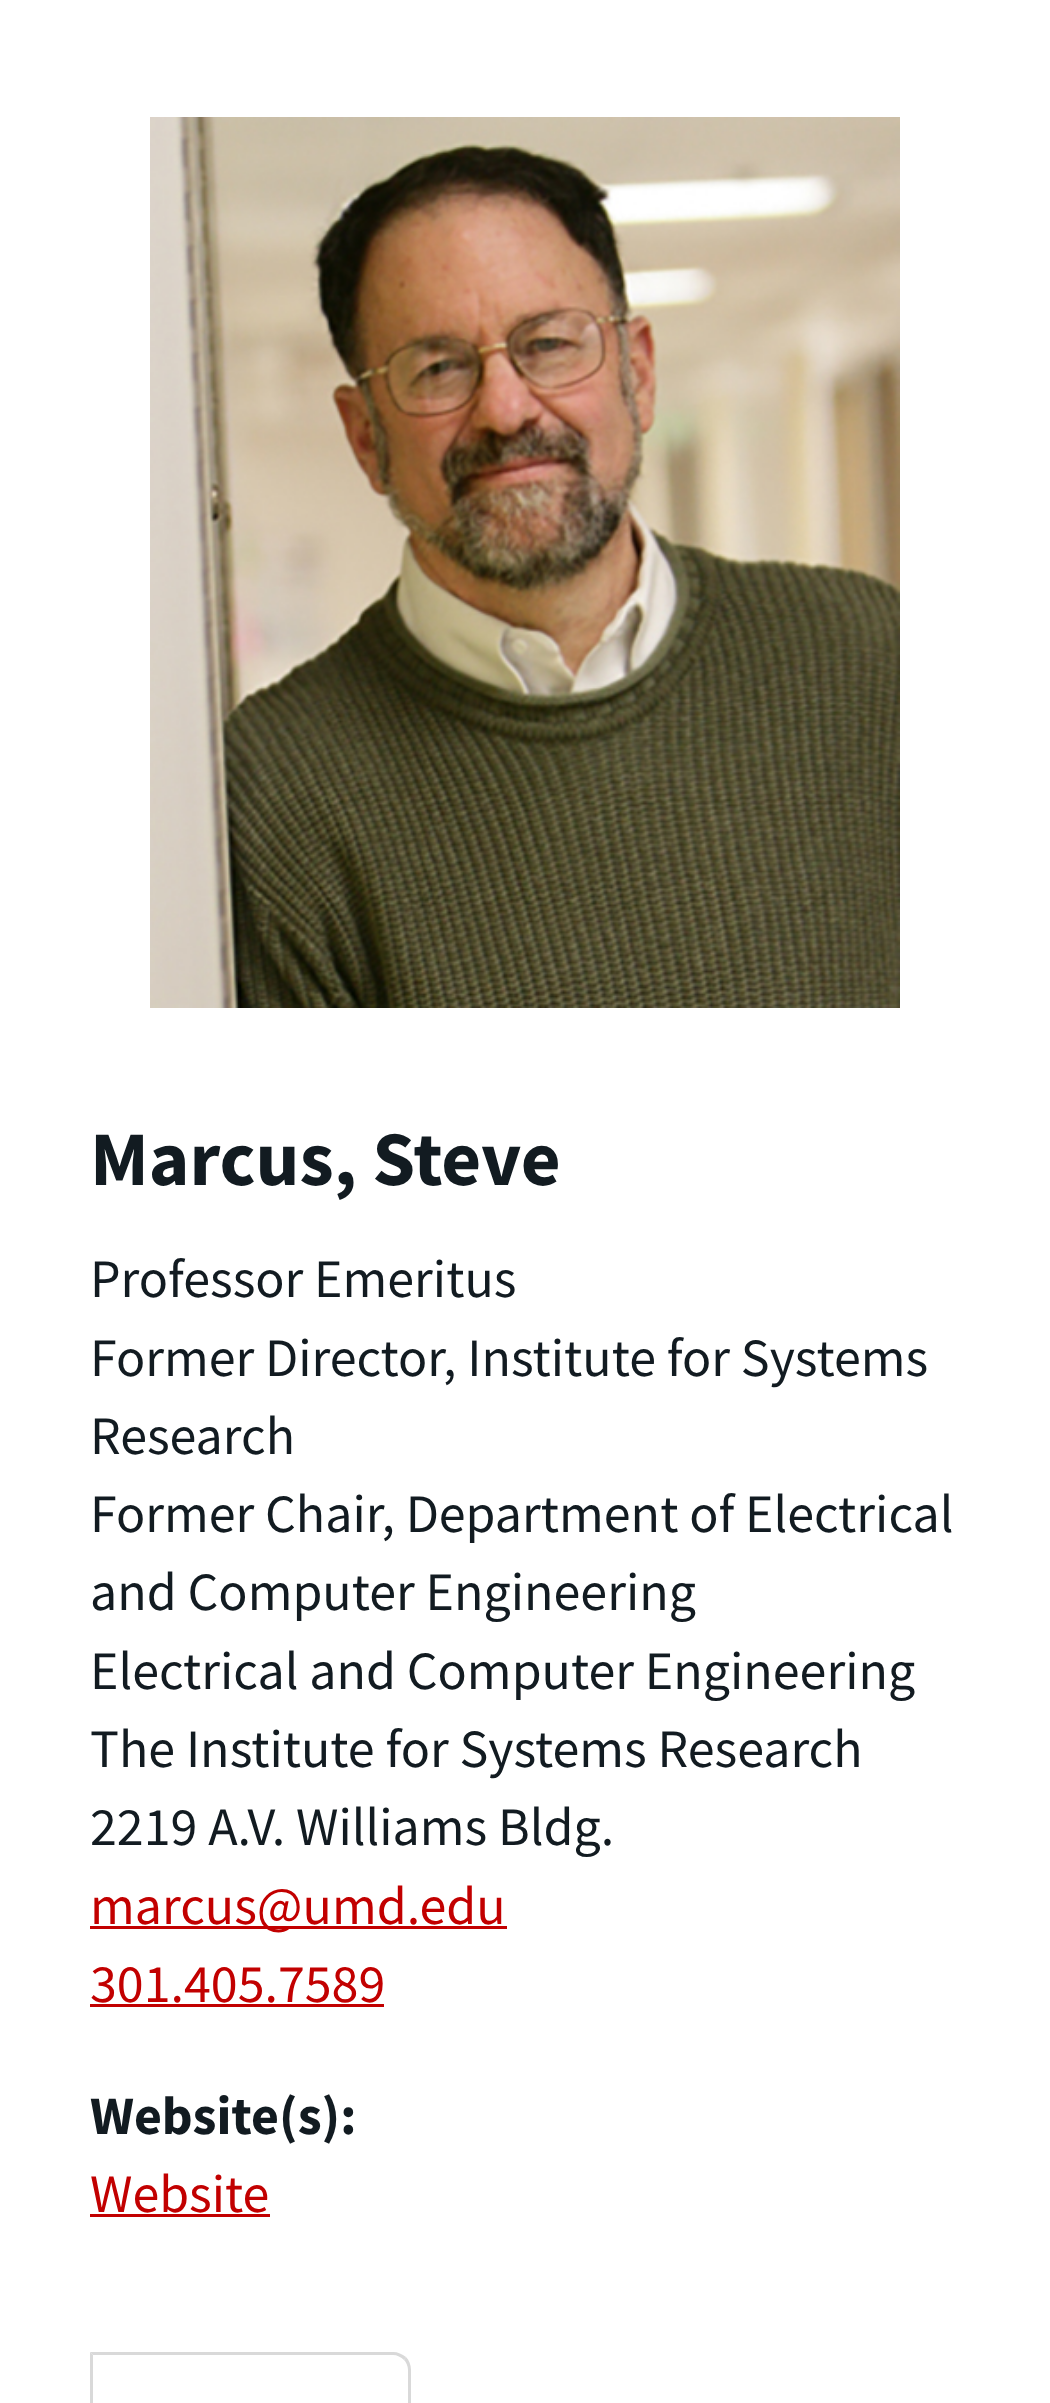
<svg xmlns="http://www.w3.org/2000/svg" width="1050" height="2403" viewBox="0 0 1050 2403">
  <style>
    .t1 { font: bold 77.25px Source Sans Pro; fill: #121b21; }
    .t2 { font: 54px Source Sans Pro; fill: #121b21; }
    .t3 { font: 54px Source Sans Pro; fill: #c20000; }
    .t4 { font: bold 54px Source Sans Pro; fill: #121b21; }
  </style>
  <rect width="100%" height="100%" fill="#fff"/>
  <image x="150" y="117" width="750" height="891" href="images/1.png"/>
  <text x="90" y="1185" class="t1">Marcus, Steve</text>
  <text x="90" y="1297" class="t2">Professor Emeritus</text>
  <text x="90" y="1376" class="t2">Former Director, Institute for Systems</text>
  <text x="90" y="1454" class="t2">Research</text>
  <text x="90" y="1532" class="t2">Former Chair, Department of Electrical</text>
  <text x="90" y="1610" class="t2">and Computer Engineering</text>
  <text x="90" y="1689" class="t2">Electrical and Computer Engineering</text>
  <text x="90" y="1767" class="t2">The Institute for Systems Research</text>
  <text x="90" y="1845" class="t2">2219 A.V. Williams Bldg.</text>
  <rect x="90" y="1926" width="417" height="3" fill="#c20000"/>
  <text x="90" y="1924" class="t3">marcus@umd.edu</text>
  <text x="90" y="2002" class="t3">301.405.7589</text>
  <rect x="90" y="2004" width="294" height="3" fill="#c20000"/>
  <text x="90" y="2134" class="t4">Website(s):</text>
  <text x="90" y="2212" class="t3">Website</text>
  <rect x="90" y="2214" width="180" height="3" fill="#c20000"/>
  <path d="M90 2352L93 2355H393C397 2355 401 2357 404 2360L406 2357C402 2354 398 2352 393 2352Z" fill="#d9d9d9"/>
  <path d="M411 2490V2370C411 2365 409 2360 406 2357L404 2360C406 2362 408 2366 408 2370V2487Z" fill="#d9d9d9"/>
  <path d="M90 2352V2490L93 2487V2355Z" fill="#d9d9d9"/>
</svg>
